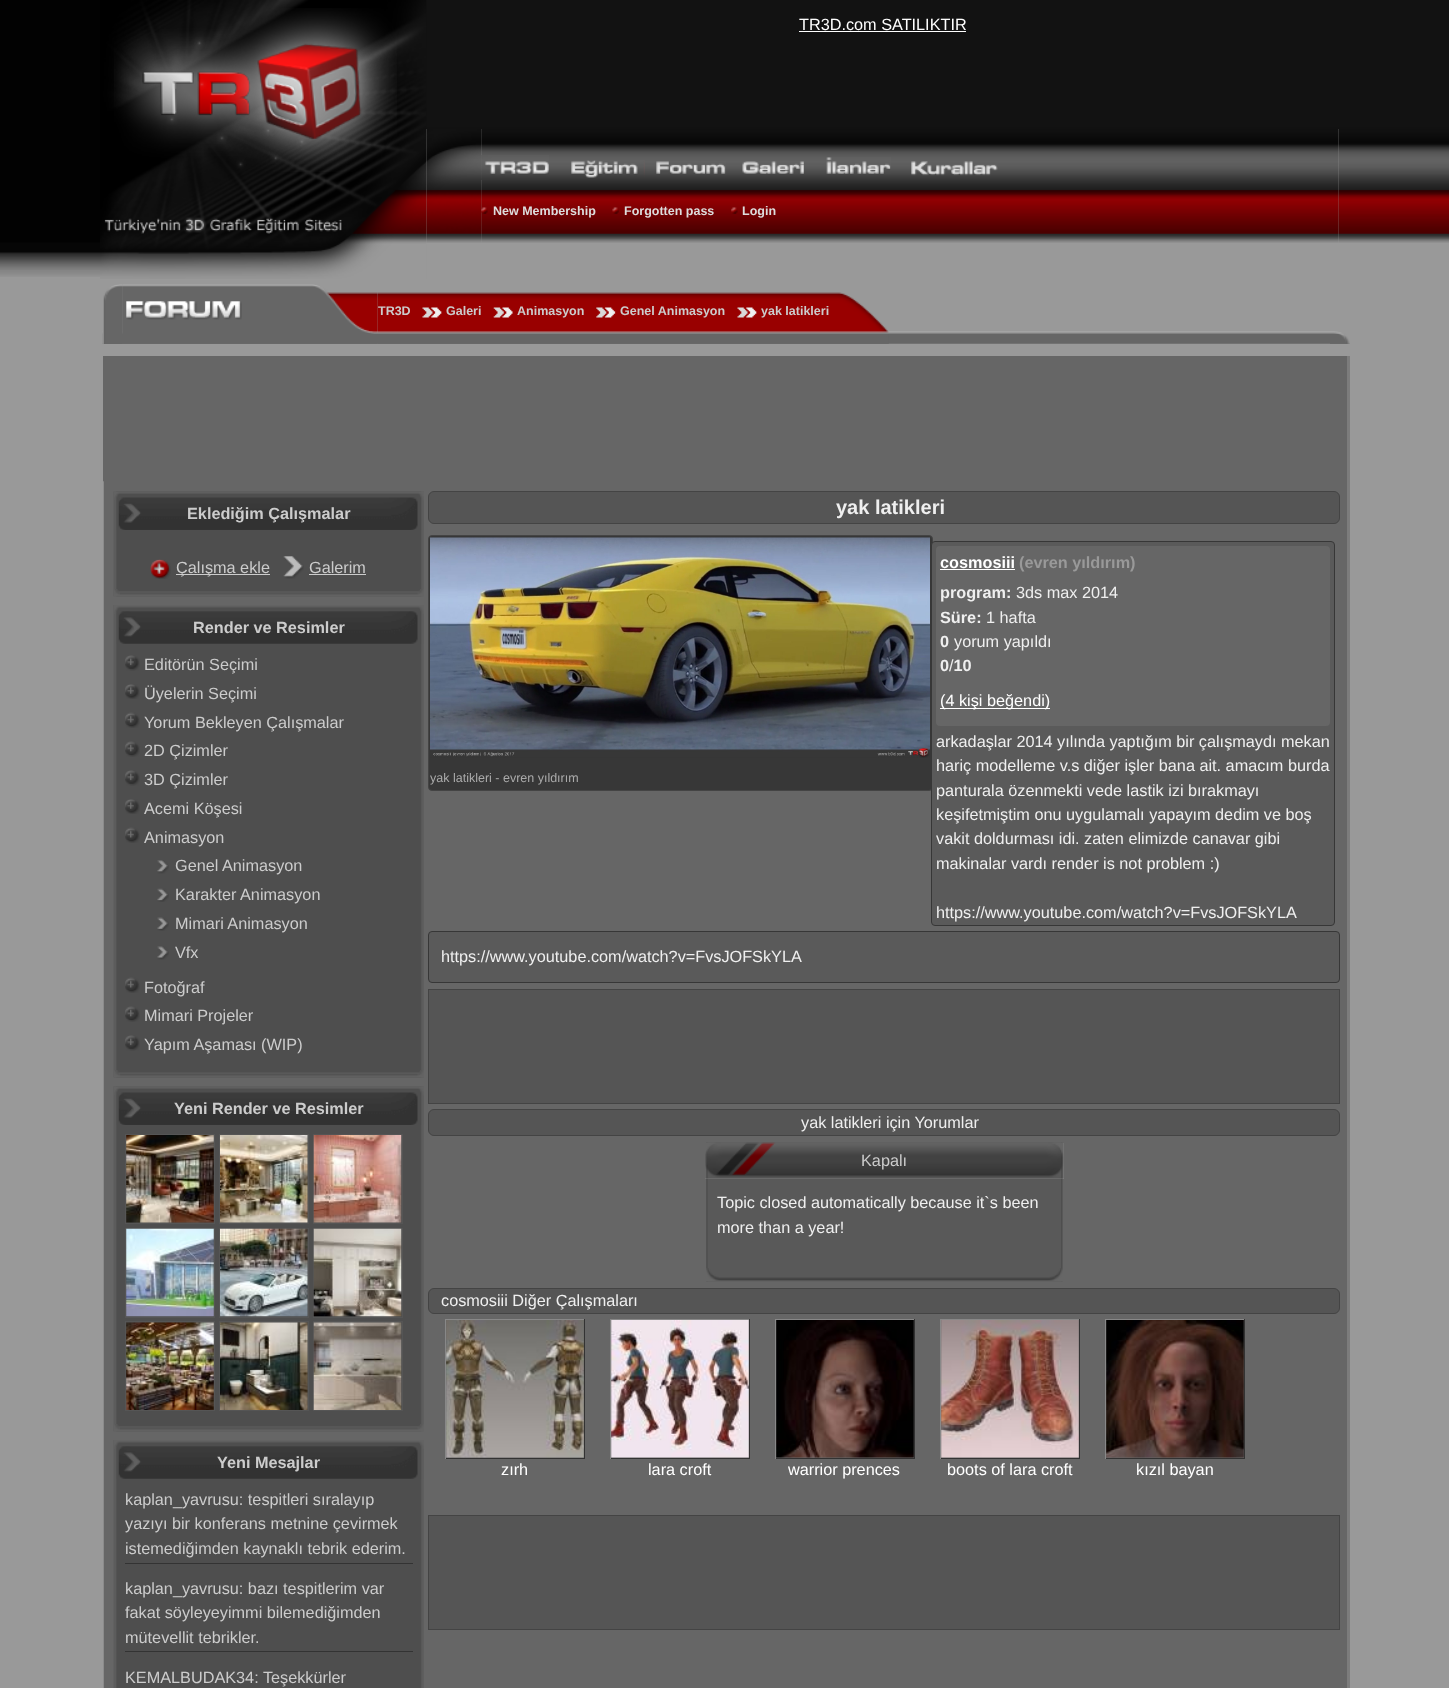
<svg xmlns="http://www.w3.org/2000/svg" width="1449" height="1688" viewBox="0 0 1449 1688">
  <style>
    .t1 { font: 16.25px Liberation Sans; fill: #fff; }
    .t2 { font: bold 12.5px Liberation Sans; fill: #ddd; }
    .t3 { font: bold 12.5px Liberation Sans; fill: #ccc; }
    .t4 { font: bold 16.25px Liberation Sans; fill: #ccc; }
    .t5 { font: 16.25px Liberation Sans; fill: #ccc; }
    .t6 { font: bold 20px Liberation Sans; fill: #efefef; }
    .t7 { font: 12.5px Liberation Sans; fill: #aaa; }
    .t8 { font: bold 16.25px Liberation Sans; fill: #fff; }
    .t9 { font: bold 16.25px Liberation Sans; fill: #999; }
    .t10 { font: bold 16.25px Liberation Sans; fill: #efefef; }
    .t11 { font: 16.25px Liberation Sans; fill: #efefef; }
  </style>
  <rect width="100%" height="100%" fill="#999"/>
  <image x="0" y="0" width="100" height="277" href="images/1.png"/>
  <image x="426" y="0" width="924" height="243" href="images/2.png"/>
  <image x="100" y="0" width="327" height="279" href="images/3.png"/>
  <image x="114" y="8" width="283" height="164" href="images/4.png"/>
  <text x="799" y="30" class="t1">TR3D.com SATILIKTIR</text>
  <rect x="799" y="31" width="167" height="1" fill="#fff"/>
  <rect x="426" y="129" width="913" height="114" fill="#999"/>
  <image x="426" y="129" width="56" height="114" href="images/5.png"/>
  <image x="481" y="129" width="858" height="114" href="images/6.png"/>
  <image x="481" y="155" width="68" height="25" href="images/7.png"/>
  <image x="571" y="160" width="74" height="18" href="images/8.png"/>
  <image x="656" y="161" width="70" height="13" href="images/9.png"/>
  <image x="742" y="161" width="62" height="13" href="images/10.png"/>
  <image x="826" y="157" width="65" height="17" href="images/11.png"/>
  <image x="911" y="161" width="87" height="15" href="images/12.png"/>
  <image x="481" y="207" width="7" height="7" href="images/13.png"/>
  <text x="493" y="215" class="t2">New Membership</text>
  <image x="612" y="207" width="7" height="7" href="images/14.png"/>
  <text x="624" y="215" class="t2">Forgotten pass</text>
  <image x="731" y="207" width="7" height="7" href="images/15.png"/>
  <text x="742" y="215" class="t2">Login</text>
  <image x="1350" y="0" width="99" height="243" href="images/16.png"/>
  <image x="102" y="331" width="1248" height="13" href="images/17.png"/>
  <image x="1330" y="331" width="20" height="13" href="images/18.png"/>
  <image x="102" y="284" width="21" height="60" href="images/19.png"/>
  <image x="102" y="286" width="21" height="58" href="images/20.png"/>
  <image x="122" y="284" width="188" height="60" href="images/21.png"/>
  <image x="126" y="301" width="116" height="19" href="images/22.png"/>
  <image x="310" y="284" width="68" height="60" href="images/23.png"/>
  <image x="377" y="292" width="458" height="52" href="images/24.png"/>
  <text x="378" y="315" class="t3">TR3D</text>
  <image x="422" y="307" width="20" height="11" href="images/25.png"/>
  <text x="446" y="315" class="t3">Galeri</text>
  <image x="493" y="307" width="20" height="11" href="images/26.png"/>
  <text x="517" y="315" class="t3">Animasyon</text>
  <image x="596" y="307" width="20" height="11" href="images/27.png"/>
  <text x="620" y="315" class="t3">Genel Animasyon</text>
  <image x="737" y="307" width="20" height="11" href="images/25.png"/>
  <text x="761" y="315" class="t3">yak latikleri</text>
  <image x="835" y="292" width="54" height="52" href="images/28.png"/>
  <rect x="103" y="356" width="1244" height="1332" fill="#666"/>
  <rect x="1347" y="356" width="3" height="1332" fill="#7c7c7c"/>
  <image x="103" y="481" width="1" height="1207" href="images/29.png"/>
  <image x="113" y="491" width="311" height="106" href="images/30.png"/>
  <image x="114" y="491" width="310" height="39" href="images/31.png"/>
  <text x="187" y="519" class="t4">Eklediğim Çalışmalar</text>
  <image x="150" y="559" width="21" height="20" href="images/32.png"/>
  <rect x="176" y="574" width="94" height="1" fill="#ccc"/>
  <text x="176" y="573" class="t5">Çalışma ekle</text>
  <image x="283" y="556" width="21" height="23" href="images/33.png"/>
  <text x="309" y="573" class="t5">Galerim</text>
  <rect x="309" y="574" width="57" height="1" fill="#ccc"/>
  <image x="114" y="589" width="310" height="7" href="images/34.png"/>
  <image x="113" y="605" width="311" height="473" href="images/35.png"/>
  <image x="114" y="605" width="310" height="39" href="images/36.png"/>
  <text x="193" y="633" class="t4">Render ve Resimler</text>
  <image x="125" y="655" width="15" height="16" href="images/37.png"/>
  <text x="144" y="670" class="t5">Editörün Seçimi</text>
  <image x="125" y="684" width="15" height="15" href="images/38.png"/>
  <text x="144" y="699" class="t5">Üyelerin Seçimi</text>
  <image x="125" y="712" width="15" height="16" href="images/39.png"/>
  <text x="144" y="728" class="t5">Yorum Bekleyen Çalışmalar</text>
  <image x="125" y="741" width="15" height="16" href="images/40.png"/>
  <text x="144" y="756" class="t5">2D Çizimler</text>
  <image x="125" y="770" width="15" height="16" href="images/37.png"/>
  <text x="144" y="785" class="t5">3D Çizimler</text>
  <image x="125" y="799" width="15" height="15" href="images/38.png"/>
  <text x="144" y="814" class="t5">Acemi Köşesi</text>
  <image x="125" y="827" width="15" height="16" href="images/39.png"/>
  <text x="144" y="843" class="t5">Animasyon</text>
  <image x="157" y="860" width="12" height="14" href="images/41.png"/>
  <text x="175" y="871" class="t5">Genel Animasyon</text>
  <image x="157" y="888" width="12" height="14" href="images/42.png"/>
  <text x="175" y="900" class="t5">Karakter Animasyon</text>
  <image x="157" y="917" width="12" height="14" href="images/43.png"/>
  <text x="175" y="929" class="t5">Mimari Animasyon</text>
  <image x="157" y="946" width="12" height="14" href="images/44.png"/>
  <text x="175" y="958" class="t5">Vfx</text>
  <image x="125" y="977" width="15" height="16" href="images/39.png"/>
  <text x="144" y="993" class="t5">Fotoğraf</text>
  <image x="125" y="1006" width="15" height="16" href="images/40.png"/>
  <text x="144" y="1021" class="t5">Mimari Projeler</text>
  <image x="125" y="1035" width="15" height="16" href="images/37.png"/>
  <text x="144" y="1050" class="t5">Yapım Aşaması (WIP)</text>
  <image x="114" y="1070" width="310" height="8" href="images/45.png"/>
  <image x="113" y="1086" width="311" height="346" href="images/46.png"/>
  <image x="114" y="1086" width="310" height="39" href="images/47.png"/>
  <text x="174" y="1114" class="t4">Yeni Render ve Resimler</text>
  <rect x="125.5" y="1134.5" width="89" height="89" fill="none" stroke="#555"/>
  <image x="126" y="1135" width="88" height="88" href="images/48.png"/>
  <rect x="219.5" y="1134.5" width="89" height="89" fill="none" stroke="#555"/>
  <image x="220" y="1135" width="88" height="88" href="images/49.png"/>
  <rect x="313.5" y="1134.5" width="89" height="89" fill="none" stroke="#555"/>
  <image x="313" y="1135" width="89" height="88" href="images/50.png"/>
  <rect x="125.5" y="1228.5" width="89" height="89" fill="none" stroke="#555"/>
  <image x="126" y="1228" width="88" height="89" href="images/51.png"/>
  <rect x="219.5" y="1228.5" width="89" height="89" fill="none" stroke="#555"/>
  <image x="220" y="1228" width="88" height="89" href="images/52.png"/>
  <rect x="313.5" y="1228.5" width="89" height="89" fill="none" stroke="#555"/>
  <image x="313" y="1228" width="89" height="89" href="images/53.png"/>
  <rect x="125.5" y="1321.5" width="89" height="89" fill="none" stroke="#555"/>
  <image x="126" y="1322" width="88" height="88" href="images/54.png"/>
  <rect x="219.5" y="1321.5" width="89" height="89" fill="none" stroke="#555"/>
  <image x="220" y="1322" width="88" height="88" href="images/55.png"/>
  <rect x="313.5" y="1321.5" width="89" height="89" fill="none" stroke="#555"/>
  <image x="313" y="1322" width="89" height="88" href="images/56.png"/>
  <image x="114" y="1424" width="310" height="7" href="images/57.png"/>
  <image x="113" y="1440" width="311" height="248" href="images/58.png"/>
  <image x="114" y="1440" width="310" height="39" href="images/36.png"/>
  <text x="217" y="1468" class="t4">Yeni Mesajlar</text>
  <rect x="125" y="1563" width="288" height="1" fill="#333"/>
  <text x="125" y="1505" class="t5">kaplan_yavrusu: tespitleri sıralayıp</text>
  <text x="125" y="1529" class="t5">yazıyı bir konferans metnine çevirmek</text>
  <text x="125" y="1554" class="t5">istemediğimden kaynaklı tebrik ederim.</text>
  <rect x="125" y="1651" width="288" height="1" fill="#333"/>
  <text x="125" y="1594" class="t5">kaplan_yavrusu: bazı tespitlerim var</text>
  <text x="125" y="1618" class="t5">fakat söyleyeyimmi bilemediğimden</text>
  <text x="125" y="1643" class="t5">mütevellit tebrikler.</text>
  <text x="125" y="1683" class="t5">KEMALBUDAK34: Teşekkürler</text>
  <rect x="428.5" y="491.5" width="911" height="32" rx="5.5" fill="#555" stroke="#444"/>
  <text x="836" y="514" class="t6">yak latikleri</text>
  <rect x="428.5" y="535.5" width="504" height="255" rx="3.5" fill="#373737" stroke="#444"/>
  <image x="430" y="537" width="500" height="221" href="images/59.png"/>
  <text x="430" y="782" class="t7">yak latikleri - evren yıldırım</text>
  <rect x="931.5" y="541.5" width="403" height="384" rx="3.5" fill="#5a5a5a" stroke="#373737"/>
  <rect x="936" y="546" width="394" height="180" rx="4" fill="#666"/>
  <text x="940" y="568" class="t8">cosmosiii</text>
  <rect x="940" y="569" width="75" height="1" fill="#fff"/>
  <text x="1019" y="568" class="t9">(evren yıldırım)</text>
  <text x="940" y="598" class="t10">program:</text>
  <text x="1016" y="598" class="t11">3ds max 2014</text>
  <text x="940" y="623" class="t10">Süre:</text>
  <text x="986" y="623" class="t11">1 hafta</text>
  <text x="940" y="647" class="t10">0</text>
  <text x="954" y="647" class="t11">yorum yapıldı</text>
  <text x="940" y="671" class="t10">0 10</text>
  <text x="949" y="671" class="t11">/</text>
  <rect x="940" y="708" width="110" height="1" fill="#fff"/>
  <text x="940" y="706" class="t1">(4 kişi beğendi)</text>
  <text x="936" y="747" class="t11">arkadaşlar 2014 yılında yaptığım bir çalışmaydı mekan</text>
  <text x="936" y="771" class="t11">hariç modelleme v.s diğer işler bana ait. amacım burda</text>
  <text x="936" y="796" class="t11">panturala özenmekti vede lastik izi bırakmayı</text>
  <text x="936" y="820" class="t11">keşifetmiştim onu uygulamalı yapayım dedim ve boş</text>
  <text x="936" y="844" class="t11">vakit doldurması idi. zaten elimizde canavar gibi</text>
  <text x="936" y="869" class="t11">makinalar vardı render is not problem :)</text>
  <text x="936" y="918" class="t11">https://www.youtube.com/watch?v=FvsJOFSkYLA</text>
  <rect x="428.5" y="931.5" width="911" height="51" rx="3.5" fill="#5a5a5a" stroke="#373737"/>
  <text x="441" y="962" class="t11">https://www.youtube.com/watch?v=FvsJOFSkYLA</text>
  <rect x="428.5" y="989.5" width="911" height="114" fill="#555" stroke="#444"/>
  <rect x="428.5" y="1109.5" width="911" height="26" rx="5.5" fill="#555" stroke="#444"/>
  <text x="801" y="1128" class="t11">yak latikleri için Yorumlar</text>
  <image x="706" y="1142" width="357" height="140" href="images/60.png"/>
  <rect x="705" y="1143" width="359" height="36" fill="#999"/>
  <image x="705" y="1142" width="359" height="37" href="images/61.png"/>
  <text x="861" y="1166" class="t5">Kapalı</text>
  <text x="717" y="1208" class="t11">Topic closed automatically because it`s been</text>
  <text x="717" y="1233" class="t11">more than a year!</text>
  <image x="706" y="1268" width="357" height="13" href="images/62.png"/>
  <rect x="428.5" y="1288.5" width="911" height="25" rx="5.5" fill="#555" stroke="#444"/>
  <text x="441" y="1306" class="t11">cosmosiii Diğer Çalışmaları</text>
  <rect x="445" y="1319" width="140" height="1" fill="#888"/>
  <rect x="584" y="1319" width="1" height="140" fill="#333"/>
  <rect x="445" y="1458" width="140" height="1" fill="#333"/>
  <rect x="445" y="1319" width="1" height="140" fill="#888"/>
  <image x="446" y="1320" width="138" height="138" href="images/63.png"/>
  <text x="501" y="1475" class="t1">zırh</text>
  <rect x="610" y="1319" width="140" height="1" fill="#888"/>
  <rect x="749" y="1319" width="1" height="140" fill="#333"/>
  <rect x="610" y="1458" width="140" height="1" fill="#333"/>
  <rect x="610" y="1319" width="1" height="140" fill="#888"/>
  <image x="611" y="1320" width="138" height="138" href="images/64.png"/>
  <text x="648" y="1475" class="t1">lara croft</text>
  <rect x="775" y="1319" width="140" height="1" fill="#888"/>
  <rect x="914" y="1319" width="1" height="140" fill="#333"/>
  <rect x="775" y="1458" width="140" height="1" fill="#333"/>
  <rect x="775" y="1319" width="1" height="140" fill="#888"/>
  <image x="776" y="1320" width="138" height="138" href="images/65.png"/>
  <text x="788" y="1475" class="t1">warrior prences</text>
  <rect x="940" y="1319" width="140" height="1" fill="#888"/>
  <rect x="1079" y="1319" width="1" height="140" fill="#333"/>
  <rect x="940" y="1458" width="140" height="1" fill="#333"/>
  <rect x="940" y="1319" width="1" height="140" fill="#888"/>
  <image x="941" y="1320" width="138" height="138" href="images/66.png"/>
  <text x="947" y="1475" class="t1">boots of lara croft</text>
  <rect x="1105" y="1319" width="140" height="1" fill="#888"/>
  <rect x="1244" y="1319" width="1" height="140" fill="#333"/>
  <rect x="1105" y="1458" width="140" height="1" fill="#333"/>
  <rect x="1105" y="1319" width="1" height="140" fill="#888"/>
  <image x="1106" y="1320" width="138" height="138" href="images/67.png"/>
  <text x="1136" y="1475" class="t1">kızıl bayan</text>
  <rect x="428.5" y="1515.5" width="911" height="114" fill="#555" stroke="#444"/>
</svg>
